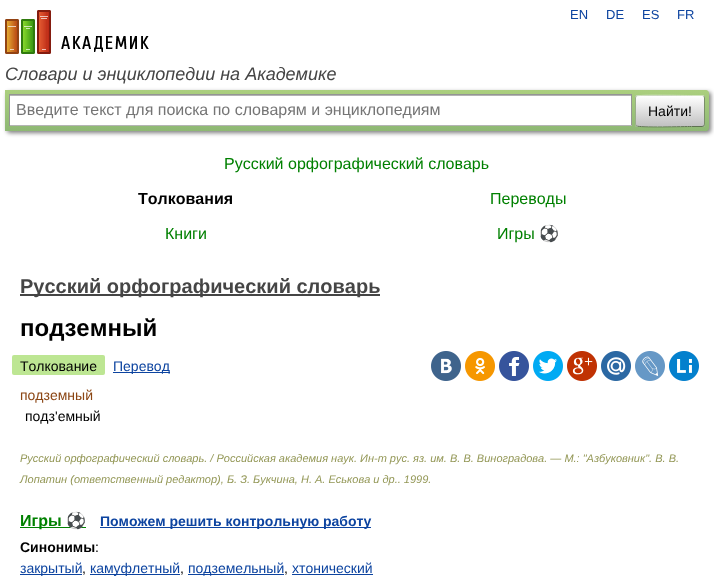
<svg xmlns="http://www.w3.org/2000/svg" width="714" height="577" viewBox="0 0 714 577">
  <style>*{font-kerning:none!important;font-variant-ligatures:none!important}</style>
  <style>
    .t1 { font: 13px Liberation Sans; fill: #0d44a0; }
    .t2 { font: italic 18px Liberation Sans; fill: #454545; }
    .t3 { font: 16px Liberation Sans; fill: #757575; }
    .t4 { font: 14px Liberation Sans; fill: #000; }
    .t5 { font: 16px Liberation Sans; fill: #008000; }
    .t6 { font: bold 16px Liberation Sans; fill: #000; }
    .t7 { font: 16px Noto Color Emoji; fill: #008000; }
    .t8 { font: bold 20px Liberation Sans; fill: #454545; }
    .t9 { font: bold 24px Liberation Sans; fill: #000; }
    .t10 { font: 14px Liberation Sans; fill: #0d44a0; }
    .t11 { font: 14px Liberation Sans; fill: #8b4513; }
    .t12 { font: italic 11px Liberation Sans; fill: #939756; }
    .t13 { font: bold 16px Liberation Sans; fill: #008000; }
    .t14 { font: bold 16px Noto Color Emoji; fill: #008000; }
    .t15 { font: bold 14px Liberation Sans; fill: #0d44a0; }
    .t16 { font: bold 14px Liberation Sans; fill: #000; }
  </style>
  <defs>
    <linearGradient id="g1" gradientUnits="userSpaceOnUse" x1="357" y1="90" x2="357" y2="131"><stop offset="0" stop-color="#abcf7e"/><stop offset="1" stop-color="#8eb874"/></linearGradient>
    <clipPath id="clip1"><rect x="635" y="95" width="70" height="32" rx="3"/></clipPath>
    <linearGradient id="g2" gradientUnits="userSpaceOnUse" x1="670" y1="66" x2="670" y2="96"><stop offset="0" stop-color="#fff"/><stop offset="1" stop-color="#c1c1c1"/></linearGradient>
    <linearGradient id="g3" gradientUnits="userSpaceOnUse" x1="670" y1="96" x2="670" y2="126"><stop offset="0" stop-color="#fff"/><stop offset="1" stop-color="#c1c1c1"/></linearGradient>
    <linearGradient id="g4" gradientUnits="userSpaceOnUse" x1="670" y1="126" x2="670" y2="156"><stop offset="0" stop-color="#fff"/><stop offset="1" stop-color="#c1c1c1"/></linearGradient>
  </defs>
  <rect width="100%" height="100%" fill="#fff"/>
  <image x="5" y="10" width="144" height="44" href="images/1.png"/>
  <text x="570" y="19" class="t1">EN</text>
  <text x="606" y="19" class="t1">DE</text>
  <text x="642" y="19" class="t1">ES</text>
  <text x="677" y="19" class="t1">FR</text>
  <text x="5" y="80" class="t2">Словари и энциклопедии на Академике</text>
  <rect x="7" y="92" width="704" height="41" rx="3" fill="#00000080" filter="blur(2px)"/>
  <path d="M5 90H706C707.5 90 709 91.5 709 93V128C709 129.5 707.5 131 706 131H5Z" fill="url(#g1)"/>
  <rect x="10" y="96" width="621" height="29" fill="#fff"/>
  <rect x="10" y="95" width="621" height="1" fill="#b3b3b3"/>
  <rect x="9" y="94" width="623" height="1" fill="#949494"/>
  <rect x="631" y="94" width="1" height="32" fill="#949494"/>
  <rect x="9" y="125" width="623" height="1" fill="#b4b4b4"/>
  <rect x="9" y="94" width="1" height="32" fill="#949494"/>
  <text x="16" y="115" class="t3">Введите текст для поиска по словарям и энциклопедиям</text>
  <g clip-path="url(#clip1)">
    <rect x="635" y="95" width="70" height="1" fill="url(#g2)"/>
    <rect x="635" y="96" width="70" height="30" fill="url(#g3)"/>
    <rect x="635" y="126" width="70" height="1" fill="url(#g4)"/>
  </g>
  <path d="M636 96H636.5C638.5 94.5 685 95.5 691.5 95.5H702L704 96" fill="none" stroke="#d1e4bc"/>
  <path d="M704 96C704 96.5 704.5 97.5 704.5 98V124C704.5 124.5 704 125.5 704 126" fill="none" stroke="#7a8e69"/>
  <path d="M704 126L702 126.5H691.5C685 126.5 638.5 127.5 636.5 126H636" fill="none" stroke="#5d7250"/>
  <path d="M636 126C636 125.5 635.5 124.5 635.5 124V98C635.5 97.5 636 96.5 636 96" fill="none" stroke="#9aae89"/>
  <text x="648" y="116" class="t4">Найти!</text>
  <text x="224" y="169" class="t5">Русский орфографический словарь</text>
  <text x="138" y="204" class="t6">Толкования</text>
  <text x="490" y="204" class="t5">Переводы</text>
  <text x="165" y="239" class="t5">Книги</text>
  <text x="497" y="239" class="t5">Игры</text>
  <text x="539" y="239" class="t7">⚽</text>
  <rect x="20" y="294" width="360" height="2" fill="#454545"/>
  <text x="20" y="293" class="t8">Русский орфографический словарь</text>
  <text x="20" y="336" class="t9">подземный</text>
  <rect x="12" y="355" width="93" height="20" rx="2" fill="#bde693"/>
  <text x="20" y="371" class="t4">Толкование</text>
  <rect x="113" y="372" width="57" height="1" fill="#0d44a0"/>
  <text x="113" y="371" class="t10">Перевод</text>
  <image x="431" y="351" width="30" height="30" href="images/2.png"/>
  <image x="465" y="351" width="30" height="30" href="images/3.png"/>
  <image x="499" y="351" width="30" height="30" href="images/4.png"/>
  <image x="533" y="351" width="30" height="30" href="images/5.png"/>
  <image x="567" y="351" width="30" height="30" href="images/6.png"/>
  <image x="601" y="351" width="30" height="30" href="images/7.png"/>
  <image x="635" y="351" width="30" height="30" href="images/8.png"/>
  <image x="669" y="351" width="30" height="30" href="images/9.png"/>
  <text x="20" y="400" class="t11">подземный</text>
  <text x="25" y="421" class="t4">подз'емный</text>
  <text x="20" y="462" class="t12">Русский орфографический словарь. / Российская академия наук. Ин-т рус. яз. им. В. В. Виноградова. — М.: "Азбуковник". В. В.</text>
  <text x="20" y="483" class="t12">Лопатин (ответственный редактор), Б. З. Букчина, Н. А. Еськова и др.. 1999.</text>
  <rect x="20" y="527" width="66" height="1" fill="#008000"/>
  <text x="20" y="526" class="t13">Игры</text>
  <text x="66" y="526" class="t14">⚽</text>
  <rect x="100" y="527" width="271" height="1" fill="#0d44a0"/>
  <text x="100" y="526" class="t15">Поможем решить контрольную работу</text>
  <text x="20" y="552" class="t16">Синонимы</text>
  <text x="95" y="552" class="t4">:</text>
  <rect x="20" y="574" width="62" height="1" fill="#0d44a0"/>
  <text x="20" y="573" class="t10">закрытый</text>
  <text x="82" y="573" class="t4">,</text>
  <rect x="90" y="574" width="90" height="1" fill="#0d44a0"/>
  <text x="90" y="573" class="t10">камуфлетный</text>
  <text x="180" y="573" class="t4">,</text>
  <rect x="188" y="574" width="96" height="1" fill="#0d44a0"/>
  <text x="188" y="573" class="t10">подземельный</text>
  <text x="284" y="573" class="t4">,</text>
  <text x="292" y="573" class="t10">хтонический</text>
  <rect x="292" y="574" width="81" height="1" fill="#0d44a0"/>
</svg>
